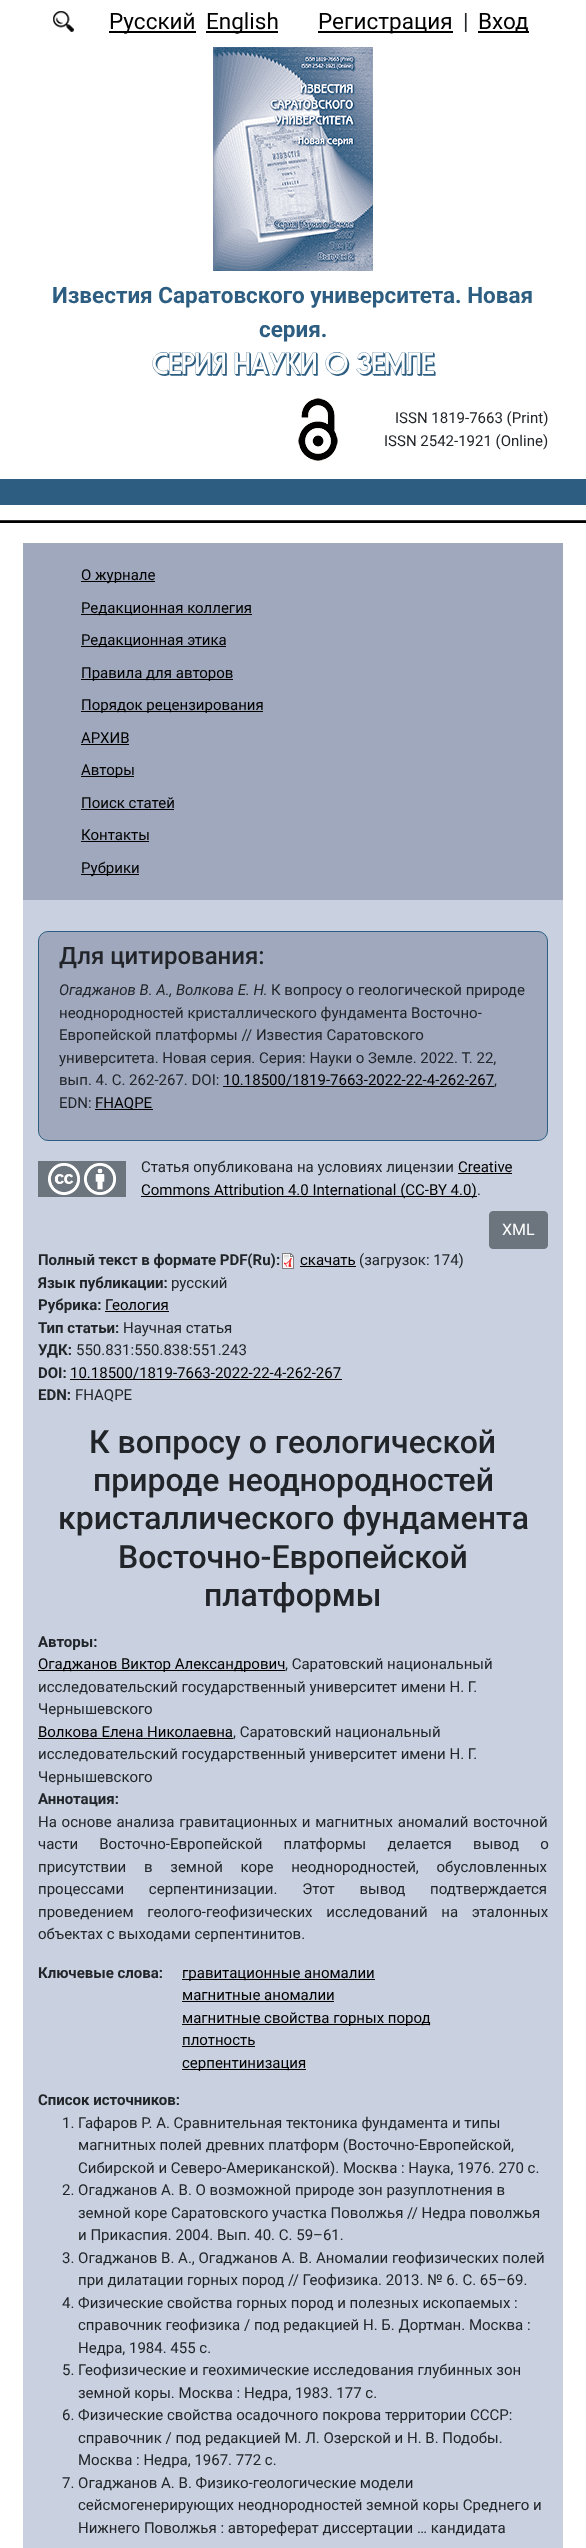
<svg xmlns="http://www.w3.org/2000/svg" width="586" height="2548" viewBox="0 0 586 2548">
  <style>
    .t1 { font: 22.5px Roboto; fill: #000; }
    .t2 { font: 22.5px Roboto; fill: #212529; }
    .t3 { font: bold 22.5px Roboto; fill: #2d5e81; }
    .t4 { font: 30px 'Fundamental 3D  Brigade'; fill: #2d5e81; }
    .t5 { font: 15px Roboto; fill: #212529; }
    .t6 { font: 15px Roboto; fill: #000; }
    .t7 { font: 500 24px Roboto; fill: #212529; }
    .t8 { font: italic 15px Roboto; fill: #212529; }
    .t9 { font: 16px Roboto; fill: #fff; }
    .t10 { font: bold 15px Roboto; fill: #212529; }
    .t11 { font: 500 32px Roboto; fill: #212529; }
  </style>
  <rect width="100%" height="100%" fill="#fff"/>
  <image x="53" y="11" width="21" height="21" href="images/1.png"/>
  <rect x="109" y="31" width="87" height="2" fill="#000"/>
  <text x="109" y="29" class="t1">Русский</text>
  <rect x="206" y="31" width="72" height="2" fill="#000"/>
  <text x="206" y="29" class="t1">English</text>
  <rect x="318" y="31" width="135" height="2" fill="#000"/>
  <text x="318" y="29" class="t1">Регистрация</text>
  <text x="463" y="29" class="t2">|</text>
  <rect x="478" y="31" width="51" height="2" fill="#000"/>
  <text x="478" y="29" class="t1">Вход</text>
  <image x="213" y="47" width="160" height="224" href="images/2.png"/>
  <text x="52" y="303" class="t3">Известия Саратовского университета. Новая</text>
  <text x="259" y="337" class="t3">серия.</text>
  <text x="152" y="374" class="t4">СЕРИЯ НАУКИ О ЗЕМЛЕ</text>
  <image x="298" y="398" width="40" height="63" href="images/3.png"/>
  <text x="395" y="423" class="t5">ISSN 1819-7663 (Print)</text>
  <text x="384" y="446" class="t5">ISSN 2542-1921 (Online)</text>
  <rect x="0" y="479" width="586" height="26" fill="#2d5e81"/>
  <rect x="0" y="520" width="586" height="1" fill="#333"/>
  <rect x="0" y="521" width="586" height="2" fill="#000"/>
  <rect x="23" y="543" width="540" height="357" fill="#9fa8bd"/>
  <rect x="81" y="581" width="74" height="1" fill="#000"/>
  <text x="81" y="580" class="t6">О журнале</text>
  <rect x="81" y="614" width="171" height="1" fill="#000"/>
  <text x="81" y="613" class="t6">Редакционная коллегия</text>
  <rect x="81" y="646" width="145" height="1" fill="#000"/>
  <text x="81" y="645" class="t6">Редакционная этика</text>
  <rect x="81" y="679" width="152" height="1" fill="#000"/>
  <text x="81" y="678" class="t6">Правила для авторов</text>
  <rect x="81" y="711" width="182" height="1" fill="#000"/>
  <text x="81" y="710" class="t6">Порядок рецензирования</text>
  <text x="81" y="743" class="t6">АРХИВ</text>
  <rect x="81" y="744" width="48" height="1" fill="#000"/>
  <rect x="81" y="776" width="53" height="1" fill="#000"/>
  <text x="81" y="775" class="t6">Авторы</text>
  <text x="81" y="808" class="t6">Поиск статей</text>
  <rect x="81" y="809" width="93" height="1" fill="#000"/>
  <text x="81" y="840" class="t6">Контакты</text>
  <rect x="81" y="841" width="68" height="1" fill="#000"/>
  <rect x="81" y="874" width="58" height="1" fill="#000"/>
  <text x="81" y="873" class="t6">Рубрики</text>
  <rect x="23" y="900" width="540" height="1648" fill="#c9d0df"/>
  <rect x="38.5" y="931.5" width="509" height="209" rx="9.5" fill="#9fa8bd" stroke="#2d5e81"/>
  <text x="59" y="964" class="t7">Для цитирования:</text>
  <text x="59" y="995" class="t8">Огаджанов В. А., Волкова Е. Н.</text>
  <text x="271" y="995" class="t5">К вопросу о геологической природе</text>
  <text x="59" y="1018" class="t5">неоднородностей кристаллического фундамента Восточно-</text>
  <text x="59" y="1040" class="t5">Европейской платформы // Известия Саратовского</text>
  <text x="59" y="1063" class="t5">университета. Новая серия. Серия: Науки о Земле. 2022. Т. 22,</text>
  <text x="59" y="1085" class="t5">вып. 4. С. 262-267. DOI:</text>
  <text x="223" y="1085" class="t6">10.18500/1819-7663-2022-22-4-262-267</text>
  <rect x="223" y="1086" width="271" height="1" fill="#000"/>
  <text x="494" y="1085" class="t5">,</text>
  <text x="59" y="1108" class="t5">EDN:</text>
  <rect x="95" y="1109" width="58" height="1" fill="#000"/>
  <text x="95" y="1108" class="t6">FHAQPE</text>
  <rect x="38" y="1161" width="88" height="36" fill="#6c757d"/>
  <image x="48" y="1163" width="32" height="32" href="images/4.png"/>
  <image x="84" y="1163" width="32" height="32" href="images/5.png"/>
  <text x="141" y="1172" class="t5">Статья опубликована на условиях лицензии</text>
  <text x="458" y="1172" class="t6">Creative</text>
  <rect x="458" y="1173" width="54" height="1" fill="#000"/>
  <rect x="141" y="1196" width="336" height="1" fill="#000"/>
  <text x="141" y="1195" class="t6">Commons Attribution 4.0 International (CC-BY 4.0)</text>
  <text x="477" y="1195" class="t5">.</text>
  <rect x="489.5" y="1211.5" width="58" height="37" rx="3.5" fill="#6c757d" stroke="#6c757d"/>
  <text x="502" y="1235" class="t9">XML</text>
  <text x="38" y="1265" class="t10">Полный текст в формате PDF(Ru):</text>
  <image x="282" y="1253" width="12" height="16" href="images/6.png"/>
  <text x="300" y="1265" class="t6">скачать</text>
  <rect x="300" y="1266" width="56" height="1" fill="#000"/>
  <text x="359" y="1265" class="t5">(загрузок: 174)</text>
  <text x="38" y="1288" class="t10">Язык публикации:</text>
  <text x="171" y="1288" class="t5">русский</text>
  <text x="38" y="1310" class="t10">Рубрика:</text>
  <text x="105" y="1310" class="t6">Геология</text>
  <rect x="105" y="1311" width="64" height="1" fill="#000"/>
  <text x="38" y="1333" class="t10">Тип статьи:</text>
  <text x="123" y="1333" class="t5">Научная статья</text>
  <text x="38" y="1355" class="t10">УДК:</text>
  <text x="76" y="1355" class="t5">550.831:550.838:551.243</text>
  <text x="38" y="1378" class="t10">DOI:</text>
  <text x="70" y="1378" class="t6">10.18500/1819-7663-2022-22-4-262-267</text>
  <rect x="70" y="1379" width="272" height="1" fill="#000"/>
  <text x="38" y="1400" class="t10">EDN:</text>
  <text x="75" y="1400" class="t5">FHAQPE</text>
  <text x="89" y="1453" class="t11">К вопросу о геологической</text>
  <text x="93" y="1491" class="t11">природе неоднородностей</text>
  <text x="58" y="1529" class="t11">кристаллического фундамента</text>
  <text x="118" y="1568" class="t11">Восточно-Европейской</text>
  <text x="204" y="1606" class="t11">платформы</text>
  <text x="38" y="1647" class="t10">Авторы:</text>
  <rect x="38" y="1670" width="247" height="1" fill="#000"/>
  <text x="38" y="1669" class="t6">Огаджанов Виктор Александрович</text>
  <text x="285" y="1669" class="t5">, Саратовский национальный</text>
  <text x="38" y="1692" class="t5">исследовательский государственный университет имени Н. Г.</text>
  <text x="38" y="1714" class="t5">Чернышевского</text>
  <text x="38" y="1737" class="t6">Волкова Елена Николаевна</text>
  <rect x="38" y="1738" width="195" height="1" fill="#000"/>
  <text x="233" y="1737" class="t5">, Саратовский национальный</text>
  <text x="38" y="1759" class="t5">исследовательский государственный университет имени Н. Г.</text>
  <text x="38" y="1782" class="t5">Чернышевского</text>
  <text x="38" y="1804" class="t10">Аннотация:</text>
  <text x="38" y="1827" word-spacing="1" class="t5">На основе анализа гравитационных и магнитных аномалий восточной</text>
  <text x="38" y="1849" word-spacing="17.5" class="t5">части Восточно-Европейской платформы делается вывод о</text>
  <text x="38" y="1872" word-spacing="14" class="t5">присутствии в земной коре неоднородностей, обусловленных</text>
  <text x="38" y="1894" word-spacing="21" class="t5">процессами серпентинизации. Этот вывод подтверждается</text>
  <text x="38" y="1917" word-spacing="10" class="t5">проведением геолого-геофизических исследований на эталонных</text>
  <text x="38" y="1939" class="t5">объектах с выходами серпентинитов.</text>
  <text x="38" y="1978" class="t10">Ключевые слова:</text>
  <rect x="182" y="1979" width="193" height="1" fill="#000"/>
  <text x="182" y="1978" class="t6">гравитационные аномалии</text>
  <text x="182" y="2000" class="t6">магнитные аномалии</text>
  <rect x="182" y="2001" width="152" height="1" fill="#000"/>
  <rect x="182" y="2024" width="248" height="1" fill="#000"/>
  <text x="182" y="2023" class="t6">магнитные свойства горных пород</text>
  <text x="182" y="2045" class="t6">плотность</text>
  <rect x="182" y="2046" width="73" height="1" fill="#000"/>
  <rect x="182" y="2069" width="124" height="1" fill="#000"/>
  <text x="182" y="2068" class="t6">серпентинизация</text>
  <text x="38" y="2105" class="t10">Список источников:</text>
  <text x="62" y="2128" class="t5">1. Гафаров Р. А. Сравнительная тектоника фундамента и типы</text>
  <text x="78" y="2150" class="t5">магнитных полей древних платформ (Восточно-Европейской,</text>
  <text x="78" y="2173" class="t5">Сибирской и Северо-Американской). Москва : Наука, 1976. 270 с.</text>
  <text x="62" y="2195" class="t5">2. Огаджанов А. В. О возможной природе зон разуплотнения в</text>
  <text x="78" y="2218" class="t5">земной коре Саратовского участка Поволжья // Недра поволжья</text>
  <text x="78" y="2240" class="t5">и Прикаспия. 2004. Вып. 40. С. 59–61.</text>
  <text x="62" y="2263" class="t5">3. Огаджанов В. A., Огаджанов А. В. Аномалии геофизических полей</text>
  <text x="78" y="2285" class="t5">при дилатации горных пород // Геофизика. 2013. № 6. С. 65–69.</text>
  <text x="62" y="2308" class="t5">4. Физические свойства горных пород и полезных ископаемых :</text>
  <text x="78" y="2330" class="t5">справочник геофизика / под редакцией Н. Б. Дортман. Москва :</text>
  <text x="78" y="2353" class="t5">Недра, 1984. 455 с.</text>
  <text x="62" y="2375" class="t5">5. Геофизические и геохимические исследования глубинных зон</text>
  <text x="78" y="2398" class="t5">земной коры. Москва : Недра, 1983. 177 с.</text>
  <text x="62" y="2420" class="t5">6. Физические свойства осадочного покрова территории СССР:</text>
  <text x="78" y="2443" class="t5">справочник / под редакцией М. Л. Озерской и Н. В. Подобы.</text>
  <text x="78" y="2465" class="t5">Москва : Недра, 1967. 772 с.</text>
  <text x="62" y="2488" class="t5">7. Огаджанов А. В. Физико-геологические модели</text>
  <text x="78" y="2510" class="t5">сейсмогенерирующих неоднородностей земной коры Среднего и</text>
  <text x="78" y="2533" class="t5">Нижнего Поволжья : автореферат диссертации … кандидата</text>
</svg>
